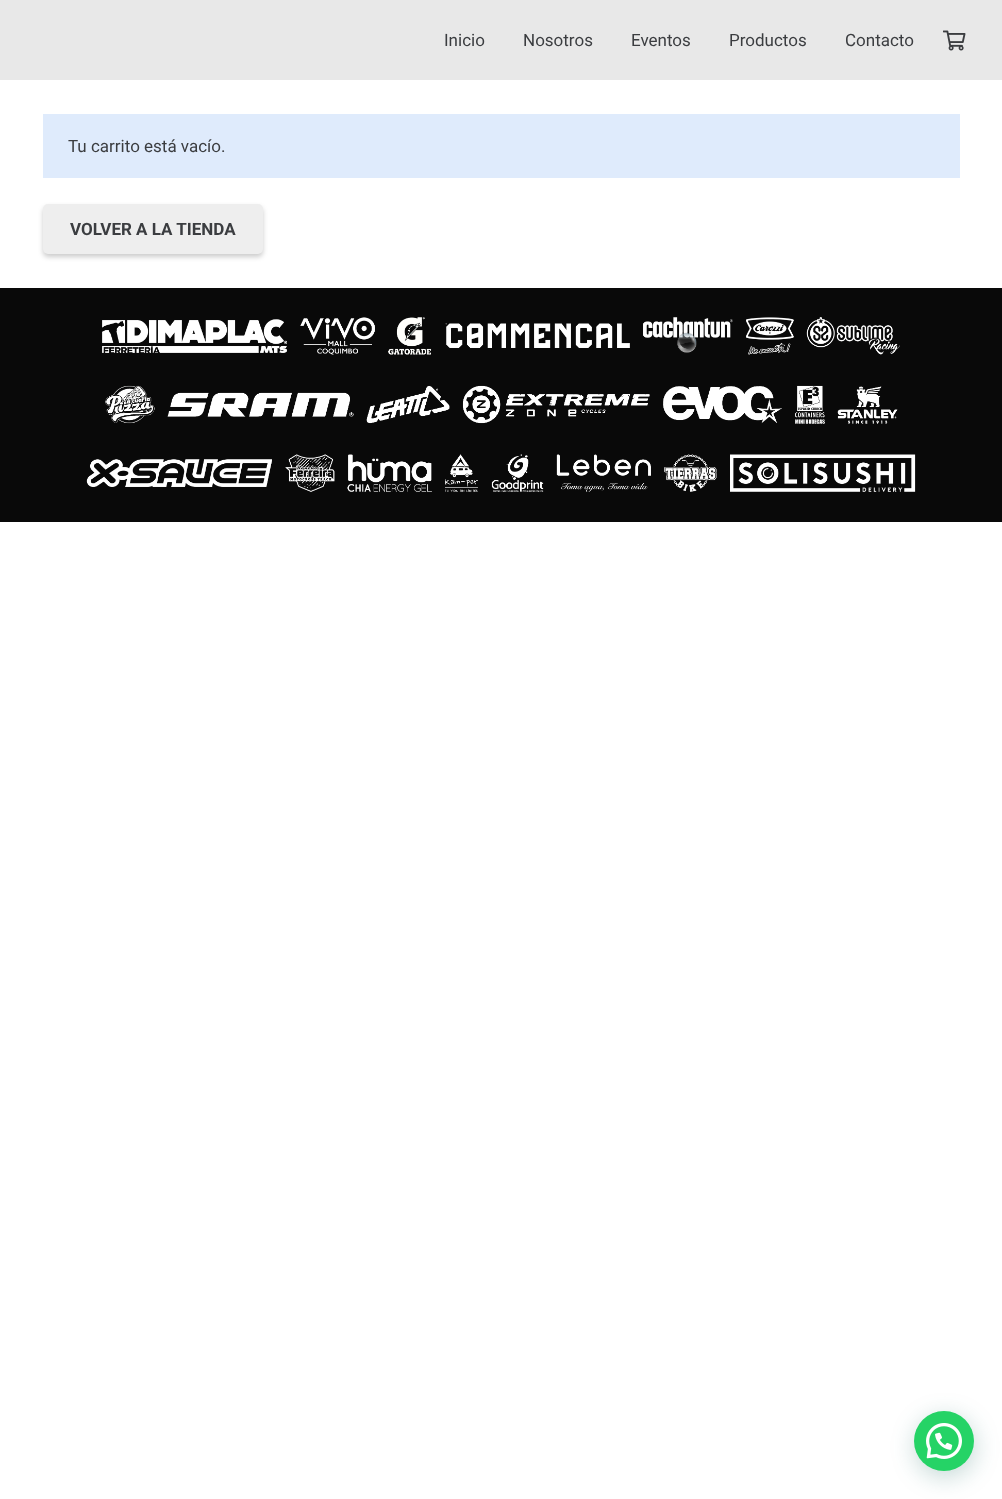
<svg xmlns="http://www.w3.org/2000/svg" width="1002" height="1499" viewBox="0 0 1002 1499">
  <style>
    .t1 { font: 17px Roboto; fill: #3b3d40; }
    .t2 { font: bold 17px Roboto; fill: #3b3d40; }
  </style>
  <rect width="100%" height="100%" fill="#fff"/>
  <rect x="0" y="0" width="1002" height="80" fill="#e8e8e8"/>
  <text x="444" y="46" class="t1">Inicio</text>
  <text x="523" y="46" class="t1">Nosotros</text>
  <text x="631" y="46" class="t1">Eventos</text>
  <text x="729" y="46" class="t1">Productos</text>
  <text x="845" y="46" class="t1">Contacto</text>
  <image x="943" y="30" width="23" height="21" href="images/1.png"/>
  <rect x="43" y="114" width="917" height="64" fill="#dfebfc"/>
  <text x="68" y="152" class="t1">Tu carrito está vacío.</text>
  <rect x="43" y="207" width="220" height="50" rx="5" fill="#00000033" filter="blur(2.5px)"/>
  <rect x="43" y="204" width="220" height="50" rx="5" fill="#eee"/>
  <text x="70" y="235" class="t2">VOLVER A LA TIENDA</text>
  <image x="0" y="288" width="1002" height="234" href="images/2.png"/>
  <rect x="915" y="1417" width="60" height="60" rx="30" fill="#075e543d" filter="blur(12px)"/>
  <circle cx="944" cy="1441" r="30" fill="#25d366"/>
  <image x="926" y="1423" width="36" height="36" href="images/3.png"/>
</svg>
